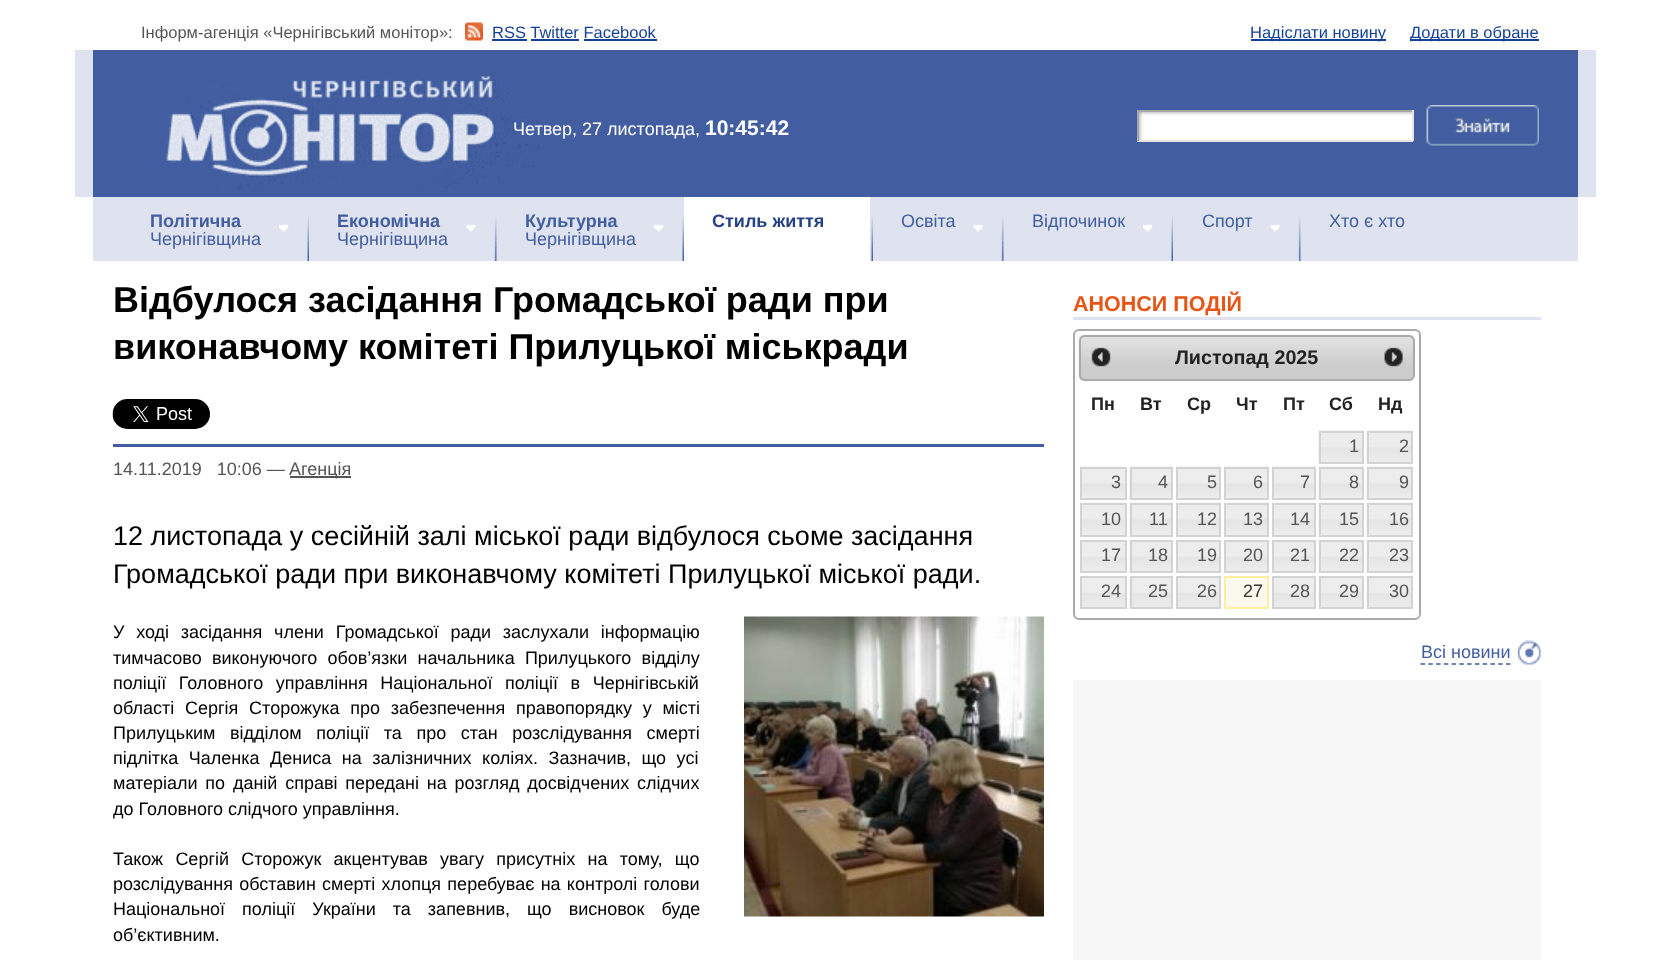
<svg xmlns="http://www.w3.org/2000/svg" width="1670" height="960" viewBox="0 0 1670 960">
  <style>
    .t1 { font: 16.5px Liberation Sans; fill: #555; }
    .t2 { font: 16.5px Liberation Sans; fill: #154198; }
    .t3 { font: 18px Liberation Sans; fill: #fff; }
    .t4 { font: bold 21px Liberation Sans; fill: #fff; }
    .t5 { font: bold 18px Liberation Sans; fill: #425ea0; }
    .t6 { font: 18px Liberation Sans; fill: #425ea0; }
    .t7 { font: bold 18px Liberation Sans; fill: #264286; }
    .t8 { font: bold 36px Liberation Sans; fill: #000; }
    .t9 { font: 18px Liberation Sans; fill: #555; }
    .t10 { font: 27px Liberation Sans; fill: #000; }
    .t11 { font: 18px Liberation Sans; fill: #000; }
    .t12 { font: bold 21.5px Liberation Sans; fill: #e75515; }
    .t13 { font: bold 19.75px Liberation Sans; fill: #222; }
    .t14 { font: bold 18px Liberation Sans; fill: #222; }
    .t15 { font: 18px Liberation Sans; fill: #363636; }
  </style>
  <rect width="100%" height="100%" fill="#fff"/>
  <text x="141" y="38" class="t1">Інформ-агенція «Чернігівський монітор»:</text>
  <image x="465" y="22" width="18" height="19" href="images/1.png"/>
  <text x="492" y="38" class="t2">RSS Twitter Facebook</text>
  <rect x="492" y="39" width="35" height="2" fill="#154198"/>
  <rect x="531" y="39" width="48" height="2" fill="#154198"/>
  <rect x="584" y="39" width="73" height="2" fill="#154198"/>
  <rect x="1251" y="39" width="135" height="2" fill="#154198"/>
  <text x="1250" y="38" class="t2">Надіслати новину</text>
  <rect x="1410" y="39" width="129" height="2" fill="#154198"/>
  <text x="1410" y="38" class="t2">Додати в обране</text>
  <rect x="93" y="50" width="1485" height="147" fill="#425ea0"/>
  <rect x="1578" y="50" width="18" height="147" fill="#dee3ef"/>
  <rect x="75" y="50" width="18" height="147" fill="#dee3ef"/>
  <image x="135" y="61" width="409" height="128" href="images/2.png"/>
  <text x="513" y="135" class="t3">Четвер, 27 листопада,</text>
  <text x="705" y="135" class="t4">10:45:42</text>
  <image x="1139" y="112" width="273" height="28" href="images/3.png"/>
  <rect x="1137" y="110" width="276" height="2" fill="#a6a6a6"/>
  <rect x="1412" y="110" width="2" height="31" fill="#e4e4e4"/>
  <rect x="1137" y="140" width="276" height="2" fill="#e4e4e4"/>
  <rect x="1137" y="110" width="2" height="31" fill="#a6a6a6"/>
  <image x="1426" y="105" width="113" height="41" href="images/4.png"/>
  <rect x="93" y="197" width="1485" height="64" fill="#dee3ef"/>
  <image x="279" y="215" width="30" height="46" href="images/5.png"/>
  <text x="150" y="227" class="t5">Політична</text>
  <text x="150" y="245" class="t6">Чернігівщина</text>
  <image x="466" y="215" width="31" height="46" href="images/6.png"/>
  <text x="337" y="227" class="t5">Економічна</text>
  <text x="337" y="245" class="t6">Чернігівщина</text>
  <image x="654" y="215" width="30" height="46" href="images/7.png"/>
  <text x="525" y="227" class="t5">Культурна</text>
  <text x="525" y="245" class="t6">Чернігівщина</text>
  <image x="871" y="215" width="2" height="46" href="images/8.png"/>
  <rect x="684" y="197" width="186" height="64" fill="#fff"/>
  <text x="712" y="227" class="t7">Стиль життя</text>
  <image x="973" y="215" width="31" height="46" href="images/6.png"/>
  <text x="901" y="227" class="t6">Освіта</text>
  <image x="1143" y="215" width="30" height="46" href="images/5.png"/>
  <text x="1032" y="227" class="t6">Відпочинок</text>
  <image x="1270" y="215" width="31" height="46" href="images/6.png"/>
  <text x="1202" y="227" class="t6">Спорт</text>
  <text x="1329" y="227" class="t6">Хто є хто</text>
  <text x="113" y="312" class="t8">Відбулося засідання Громадської ради при</text>
  <text x="113" y="359" class="t8">виконавчому комітеті Прилуцької міськради</text>
  <image x="112" y="399" width="98" height="30" href="images/9.png"/>
  <rect x="113" y="444" width="931" height="3" fill="#425ea0"/>
  <text x="113" y="475" class="t9" xml:space="preserve">14.11.2019   10:06 —</text>
  <rect x="290" y="476" width="61" height="2" fill="#555"/>
  <text x="289" y="475" class="t9">Агенцiя</text>
  <text x="113" y="545" class="t10">12 листопада у сесійній залі міської ради відбулося сьоме засідання</text>
  <text x="113" y="583" class="t10">Громадської ради при виконавчому комітеті Прилуцької міської ради.</text>
  <text x="113" y="638" word-spacing="6.75" class="t11">У ході засідання члени Громадської ради заслухали інформацію</text>
  <text x="113" y="664" word-spacing="5.25" class="t11">тимчасово виконуючого обов’язки начальника Прилуцького відділу</text>
  <text x="113" y="689" word-spacing="7.5" class="t11">поліції Головного управління Національної поліції в Чернігівській</text>
  <text x="113" y="714" word-spacing="5.75" class="t11">області Сергія Сторожука про забезпечення правопорядку у місті</text>
  <text x="113" y="739" word-spacing="9.5" class="t11">Прилуцьким відділом поліції та про стан розслідування смерті</text>
  <text x="113" y="764" word-spacing="5.5" class="t11">підлітка Чаленка Дениса на залізничних коліях. Зазначив, що усі</text>
  <text x="113" y="789" word-spacing="2.75" class="t11">матеріали по даній справі передані на розгляд досвідчених слідчих</text>
  <text x="113" y="815" class="t11">до Головного слідчого управління.</text>
  <text x="113" y="865" word-spacing="7.25" class="t11">Також Сергій Сторожук акцентував увагу присутніх на тому, що</text>
  <text x="113" y="890" word-spacing="1.25" class="t11">розслідування обставин смерті хлопця перебуває на контролі голови</text>
  <text x="113" y="915" word-spacing="12" class="t11">Національної поліції України та запевнив, що висновок буде</text>
  <text x="113" y="941" class="t11">об’єктивним.</text>
  <image x="744" y="616" width="300" height="301" href="images/10.png"/>
  <rect x="1073" y="317" width="468" height="3" fill="#dee3ef"/>
  <text x="1073" y="311" class="t12">АНОНСИ ПОДІЙ</text>
  <rect x="1074" y="330" width="346" height="289" rx="5" fill="none" stroke="#aaa" stroke-width="2"/>
  <image x="1078" y="334" width="337" height="47" href="images/11.png"/>
  <rect x="1080" y="336" width="334" height="44" rx="5" fill="none" stroke="#aaa" stroke-width="2"/>
  <image x="1091" y="347" width="20" height="20" href="images/12.png"/>
  <text x="1175" y="364" class="t13">Листопад 2025</text>
  <image x="1384" y="347" width="19" height="20" href="images/13.png"/>
  <text x="1091" y="410" class="t14">Пн</text>
  <text x="1140" y="410" class="t14">Вт</text>
  <text x="1187" y="410" class="t14">Ср</text>
  <text x="1236" y="410" class="t14">Чт</text>
  <text x="1283" y="410" class="t14">Пт</text>
  <text x="1329" y="410" class="t14">Сб</text>
  <text x="1378" y="410" class="t14">Нд</text>
  <image x="1318" y="430" width="46" height="34" href="images/14.png"/>
  <rect x="1320" y="432" width="43" height="31" fill="none" stroke="#d3d3d3" stroke-width="2"/>
  <text x="1349" y="452" class="t9">1</text>
  <image x="1366" y="430" width="47" height="34" href="images/15.png"/>
  <rect x="1368" y="432" width="44" height="31" fill="none" stroke="#d3d3d3" stroke-width="2"/>
  <text x="1399" y="452" class="t9">2</text>
  <image x="1080" y="466" width="47" height="32" href="images/16.png"/>
  <rect x="1081" y="468" width="45" height="31" fill="none" stroke="#d3d3d3" stroke-width="2"/>
  <text x="1111" y="488" class="t9">3</text>
  <image x="1129" y="466" width="44" height="34" href="images/17.png"/>
  <rect x="1131" y="468" width="41" height="31" fill="none" stroke="#d3d3d3" stroke-width="2"/>
  <text x="1158" y="488" class="t9">4</text>
  <image x="1176" y="466" width="45" height="32" href="images/18.png"/>
  <rect x="1177" y="468" width="43" height="31" fill="none" stroke="#d3d3d3" stroke-width="2"/>
  <text x="1207" y="488" class="t9">5</text>
  <image x="1224" y="466" width="45" height="32" href="images/18.png"/>
  <rect x="1225" y="468" width="43" height="31" fill="none" stroke="#d3d3d3" stroke-width="2"/>
  <text x="1253" y="488" class="t9">6</text>
  <image x="1272" y="466" width="44" height="32" href="images/19.png"/>
  <rect x="1273" y="468" width="42" height="31" fill="none" stroke="#d3d3d3" stroke-width="2"/>
  <text x="1300" y="488" class="t9">7</text>
  <image x="1318" y="466" width="46" height="34" href="images/14.png"/>
  <rect x="1320" y="468" width="43" height="31" fill="none" stroke="#d3d3d3" stroke-width="2"/>
  <text x="1349" y="488" class="t9">8</text>
  <image x="1366" y="466" width="47" height="34" href="images/15.png"/>
  <rect x="1368" y="468" width="44" height="31" fill="none" stroke="#d3d3d3" stroke-width="2"/>
  <text x="1399" y="488" class="t9">9</text>
  <image x="1080" y="502" width="47" height="33" href="images/20.png"/>
  <rect x="1081" y="504" width="45" height="32" fill="none" stroke="#d3d3d3" stroke-width="2"/>
  <text x="1101" y="525" class="t9">10</text>
  <image x="1129" y="502" width="44" height="35" href="images/21.png"/>
  <rect x="1131" y="504" width="41" height="32" fill="none" stroke="#d3d3d3" stroke-width="2"/>
  <text x="1149" y="525" class="t9">11</text>
  <image x="1176" y="502" width="45" height="33" href="images/22.png"/>
  <rect x="1177" y="504" width="43" height="32" fill="none" stroke="#d3d3d3" stroke-width="2"/>
  <text x="1197" y="525" class="t9">12</text>
  <image x="1224" y="502" width="45" height="33" href="images/22.png"/>
  <rect x="1225" y="504" width="43" height="32" fill="none" stroke="#d3d3d3" stroke-width="2"/>
  <text x="1243" y="525" class="t9">13</text>
  <image x="1272" y="502" width="44" height="33" href="images/23.png"/>
  <rect x="1273" y="504" width="42" height="32" fill="none" stroke="#d3d3d3" stroke-width="2"/>
  <text x="1290" y="525" class="t9">14</text>
  <image x="1318" y="502" width="46" height="35" href="images/24.png"/>
  <rect x="1320" y="504" width="43" height="32" fill="none" stroke="#d3d3d3" stroke-width="2"/>
  <text x="1339" y="525" class="t9">15</text>
  <image x="1366" y="502" width="47" height="35" href="images/25.png"/>
  <rect x="1368" y="504" width="44" height="32" fill="none" stroke="#d3d3d3" stroke-width="2"/>
  <text x="1389" y="525" class="t9">16</text>
  <image x="1082" y="542" width="43" height="29" href="images/26.png"/>
  <rect x="1081" y="541" width="45" height="31" fill="none" stroke="#d3d3d3" stroke-width="2"/>
  <text x="1101" y="561" class="t9">17</text>
  <image x="1129" y="540" width="42" height="33" href="images/27.png"/>
  <rect x="1131" y="541" width="41" height="31" fill="none" stroke="#d3d3d3" stroke-width="2"/>
  <text x="1148" y="561" class="t9">18</text>
  <image x="1178" y="542" width="41" height="29" href="images/28.png"/>
  <rect x="1177" y="541" width="43" height="31" fill="none" stroke="#d3d3d3" stroke-width="2"/>
  <text x="1197" y="561" class="t9">19</text>
  <image x="1226" y="542" width="41" height="29" href="images/28.png"/>
  <rect x="1225" y="541" width="43" height="31" fill="none" stroke="#d3d3d3" stroke-width="2"/>
  <text x="1243" y="561" class="t9">20</text>
  <image x="1274" y="542" width="40" height="29" href="images/29.png"/>
  <rect x="1273" y="541" width="42" height="31" fill="none" stroke="#d3d3d3" stroke-width="2"/>
  <text x="1290" y="561" class="t9">21</text>
  <image x="1318" y="540" width="44" height="33" href="images/30.png"/>
  <rect x="1320" y="541" width="43" height="31" fill="none" stroke="#d3d3d3" stroke-width="2"/>
  <text x="1339" y="561" class="t9">22</text>
  <image x="1366" y="540" width="45" height="33" href="images/31.png"/>
  <rect x="1368" y="541" width="44" height="31" fill="none" stroke="#d3d3d3" stroke-width="2"/>
  <text x="1389" y="561" class="t9">23</text>
  <image x="1082" y="578" width="43" height="29" href="images/26.png"/>
  <rect x="1081" y="577" width="45" height="31" fill="none" stroke="#d3d3d3" stroke-width="2"/>
  <text x="1101" y="597" class="t9">24</text>
  <image x="1129" y="576" width="42" height="33" href="images/27.png"/>
  <rect x="1131" y="577" width="41" height="31" fill="none" stroke="#d3d3d3" stroke-width="2"/>
  <text x="1148" y="597" class="t9">25</text>
  <image x="1178" y="578" width="41" height="29" href="images/28.png"/>
  <rect x="1177" y="577" width="43" height="31" fill="none" stroke="#d3d3d3" stroke-width="2"/>
  <text x="1197" y="597" class="t9">26</text>
  <rect x="1225" y="577" width="43" height="31" fill="#fbf9ee" stroke="#fcefa1" stroke-width="2"/>
  <text x="1243" y="597" class="t15">27</text>
  <image x="1274" y="578" width="40" height="29" href="images/29.png"/>
  <rect x="1273" y="577" width="42" height="31" fill="none" stroke="#d3d3d3" stroke-width="2"/>
  <text x="1290" y="597" class="t9">28</text>
  <image x="1318" y="576" width="44" height="33" href="images/30.png"/>
  <rect x="1320" y="577" width="43" height="31" fill="none" stroke="#d3d3d3" stroke-width="2"/>
  <text x="1339" y="597" class="t9">29</text>
  <image x="1366" y="576" width="45" height="33" href="images/31.png"/>
  <rect x="1368" y="577" width="44" height="31" fill="none" stroke="#d3d3d3" stroke-width="2"/>
  <text x="1389" y="597" class="t9">30</text>
  <image x="1518" y="640" width="23" height="25" href="images/32.png"/>
  <text x="1421" y="658" class="t6">Всі новини</text>
  <path d="M1420.5 664H1510.5" fill="none" stroke="#425ea0" stroke-width="1.5" stroke-dasharray="4.5 3.27"/>
  <rect x="1073" y="680" width="468" height="280" fill="#f7f7f7"/>
</svg>
